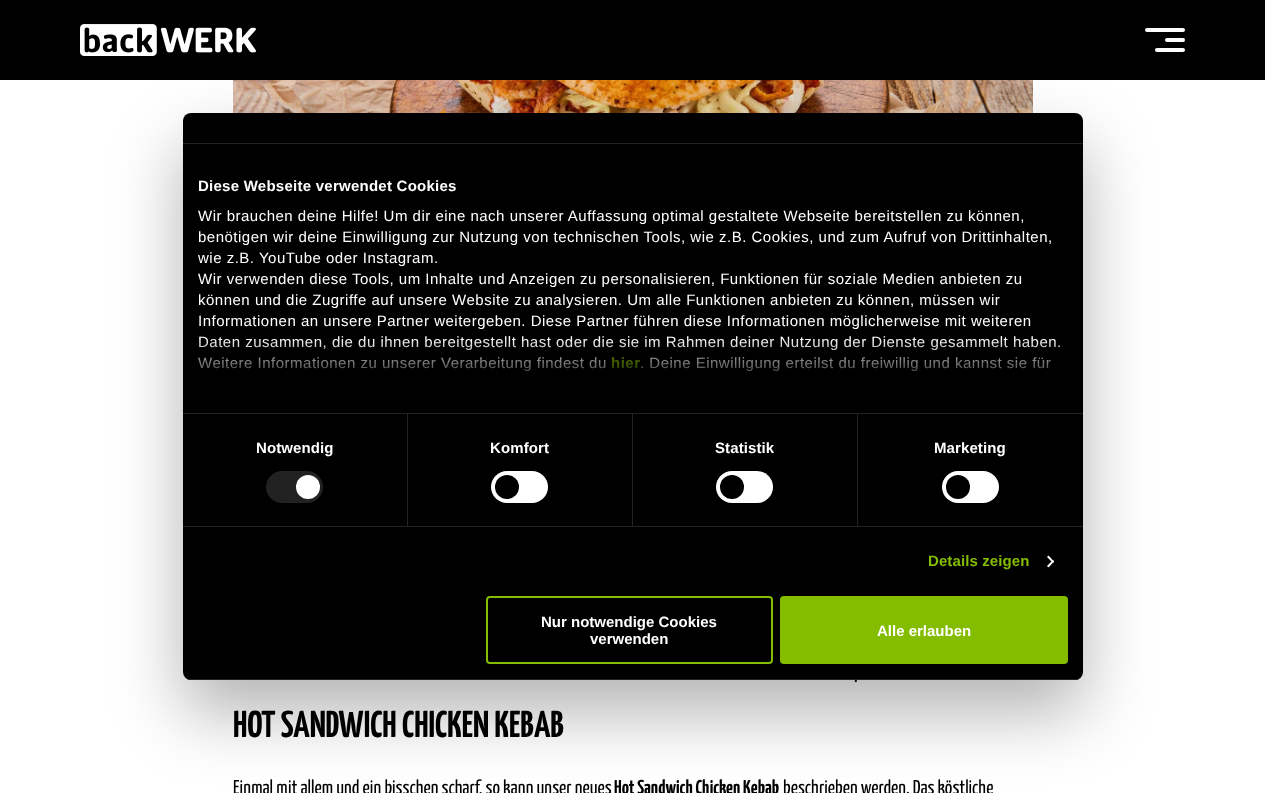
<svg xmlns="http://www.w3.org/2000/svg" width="1265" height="793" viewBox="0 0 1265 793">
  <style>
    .t1 { font: bold 15px Liberation Sans; letter-spacing: 0.25px; fill: #fff; }
    .t2 { font: 15px Liberation Sans; letter-spacing: 0.5px; fill: #fff; }
    .t3 { font: bold 15px Liberation Sans; letter-spacing: 0.5px; fill: #84bd00; }
    .t4 { font: bold 15px Liberation Sans; letter-spacing: 0.1px; fill: #fff; }
    .t5 { font: bold 15px Liberation Sans; letter-spacing: 0.1px; fill: #84bd00; }
    .t6 { font: 20px Yanone Kaffeesatz; fill: #000; }
    .t7 { font: bold 15px Liberation Sans; fill: #fff; }
    .t8 { font: bold 37.5px Yanone Kaffeesatz; fill: #000; }
    .t9 { font: bold 20px Yanone Kaffeesatz; fill: #000; }
  </style>
  <defs>
    <linearGradient id="g1" gradientUnits="userSpaceOnUse" x1="627" y1="413" x2="627" y2="338"><stop offset="0" stop-color="#000"/><stop offset="0.5" stop-color="#000" stop-opacity="0.8"/><stop offset="1" stop-color="#000" stop-opacity="0"/></linearGradient>
    <clipPath id="clip1"><rect x="183" y="113" width="900" height="567" rx="8"/></clipPath>
  </defs>
  <rect width="100%" height="100%" fill="#fff"/>
  <rect x="0" y="0" width="1265" height="80" fill="#000"/>
  <image x="80" y="24" width="176" height="32" href="images/1.png"/>
  <rect x="1145" y="28" width="40" height="4" rx="2" fill="#fff"/>
  <rect x="1165" y="38" width="20" height="4" rx="2" fill="#fff"/>
  <rect x="1155" y="48" width="30" height="4" rx="2" fill="#fff"/>
  <image x="233" y="80" width="800" height="33" href="images/2.png"/>
  <rect x="183" y="145" width="900" height="567" rx="8" fill="#0000004d" filter="blur(34px)"/>
  <rect x="183" y="113" width="900" height="567" rx="8" fill="#000"/>
  <rect x="183" y="143" width="900" height="1" fill="#222"/>
  <rect x="183" y="413" width="900" height="1" fill="#222"/>
  <text x="198" y="191" class="t1">Diese Webseite verwendet Cookies</text>
  <text x="198" y="221" class="t2">Wir brauchen deine Hilfe! Um dir eine nach unserer Auffassung optimal gestaltete Webseite bereitstellen zu können,</text>
  <text x="198" y="242" class="t2">benötigen wir deine Einwilligung zur Nutzung von technischen Tools, wie z.B. Cookies, und zum Aufruf von Drittinhalten,</text>
  <text x="198" y="263" class="t2">wie z.B. YouTube oder Instagram.</text>
  <text x="198" y="284" class="t2">Wir verwenden diese Tools, um Inhalte und Anzeigen zu personalisieren, Funktionen für soziale Medien anbieten zu</text>
  <text x="198" y="305" class="t2">können und die Zugriffe auf unsere Website zu analysieren. Um alle Funktionen anbieten zu können, müssen wir</text>
  <text x="198" y="326" class="t2">Informationen an unsere Partner weitergeben. Diese Partner führen diese Informationen möglicherweise mit weiteren</text>
  <text x="198" y="347" class="t2">Daten zusammen, die du ihnen bereitgestellt hast oder die sie im Rahmen deiner Nutzung der Dienste gesammelt haben.</text>
  <text x="198" y="368" class="t2">Weitere Informationen zu unserer Verarbeitung findest du</text>
  <text x="611" y="368" class="t3">hier</text>
  <text x="640" y="368" class="t2">. Deine Einwilligung erteilst du freiwillig und kannst sie für</text>
  <rect x="197" y="339" width="863" height="33" fill="url(#g1)"/>
  <rect x="183" y="526" width="900" height="1" fill="#222"/>
  <rect x="407" y="414" width="1" height="112" fill="#222"/>
  <text x="256" y="453" class="t4">Notwendig</text>
  <rect x="266" y="471" width="57" height="32" rx="16" fill="#222"/>
  <circle cx="308" cy="487" r="12" fill="#fff"/>
  <rect x="632" y="414" width="1" height="112" fill="#222"/>
  <text x="490" y="453" class="t4">Komfort</text>
  <rect x="491" y="471" width="57" height="32" rx="16" fill="#fff"/>
  <circle cx="507" cy="487" r="12" fill="#000"/>
  <rect x="857" y="414" width="1" height="112" fill="#222"/>
  <text x="715" y="453" class="t4">Statistik</text>
  <rect x="716" y="471" width="57" height="32" rx="16" fill="#fff"/>
  <circle cx="732" cy="487" r="12" fill="#000"/>
  <text x="934" y="453" class="t4">Marketing</text>
  <rect x="942" y="471" width="57" height="32" rx="16" fill="#fff"/>
  <circle cx="958" cy="487" r="12" fill="#000"/>
  <text x="928" y="566" class="t5">Details zeigen</text>
  <path d="M1048.5 555.5L1054 561.5L1053 563L1047 557Z" fill="#fff"/>
  <path d="M1053 560L1054 561.5L1048.5 567.5L1047 566Z" fill="#fff"/>
  <text x="854" y="682" class="t6">.</text>
  <g clip-path="url(#clip1)">
    <rect x="183" y="679" width="900" height="1" fill="#222"/>
  </g>
  <rect x="487" y="597" width="285" height="66" rx="3" fill="none" stroke="#84bd00" stroke-width="2"/>
  <text x="541" y="627" class="t7">Nur notwendige Cookies</text>
  <text x="590" y="644" class="t7">verwenden</text>
  <rect x="781" y="597" width="286" height="66" rx="3" fill="#84bd00" stroke="#84bd00" stroke-width="2"/>
  <text x="877" y="636" class="t7">Alle erlauben</text>
  <text x="233" y="737" class="t8">HOT SANDWICH CHICKEN KEBAB</text>
  <text x="233" y="794" class="t6">Einmal mit allem und ein bisschen scharf, so kann unser neues</text>
  <text x="614" y="794" class="t9">Hot Sandwich Chicken Kebab</text>
  <text x="783" y="794" class="t6">beschrieben werden. Das köstliche</text>
</svg>
